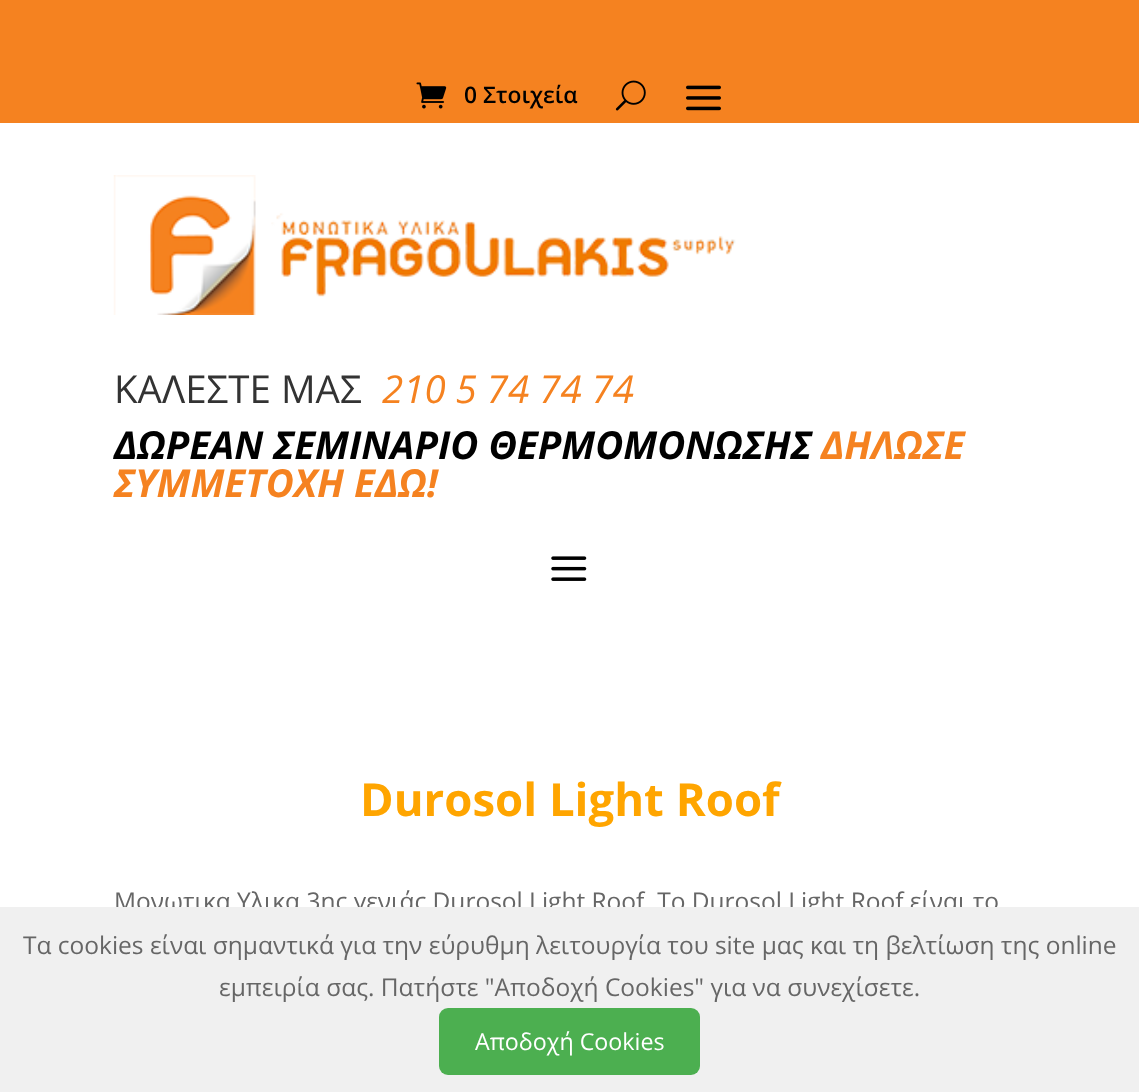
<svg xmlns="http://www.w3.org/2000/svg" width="1139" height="1092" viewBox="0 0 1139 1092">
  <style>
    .t1 { font: 600 22.75px Open Sans; fill: #000; }
    .t2 { font: 38.5px Open Sans; fill: #333; }
    .t3 { font: italic 38.5px Open Sans; fill: #f58220; }
    .t4 { font: italic bold 38.5px Open Sans; fill: #000; }
    .t5 { font: italic bold 38.5px Open Sans; fill: #f58220; }
    .t6 { font: bold 45.5px Open Sans; fill: #ffa500; }
    .t7 { font: 24.5px Open Sans; fill: #666; }
    .t8 { font: 23.25px Open Sans; fill: #fff; }
  </style>
  <rect width="100%" height="100%" fill="#fff"/>
  <rect x="0" y="0" width="1139" height="123" fill="#f58220"/>
  <image x="416" y="82" width="31" height="27" href="images/1.png"/>
  <text x="464" y="103" class="t1">0 Στοιχεία</text>
  <image x="615" y="80" width="31" height="31" href="images/2.png"/>
  <image x="686" y="85" width="35" height="26" href="images/3.png"/>
  <image x="113" y="175" width="623" height="140" href="images/4.png"/>
  <text x="114" y="403" class="t2">ΚΑΛΕΣΤΕ ΜΑΣ</text>
  <text x="382" y="403" class="t3">210 5 74 74 74</text>
  <text x="114" y="459" class="t4">ΔΩΡΕΑΝ ΣΕΜΙΝΑΡΙΟ ΘΕΡΜΟΜΟΝΩΣΗΣ</text>
  <text x="821" y="459" class="t5">ΔΗΛΩΣΕ</text>
  <text x="114" y="497" class="t5">ΣΥΜΜΕΤΟΧΗ ΕΔΩ!</text>
  <image x="551" y="556" width="36" height="25" href="images/5.png"/>
  <text x="360" y="816" class="t6">Durosol Light Roof</text>
  <text x="114" y="910" class="t7">Μονωτικα Υλικα 3ης γενιάς Durosol Light Roof. Το Durosol Light Roof είναι το</text>
  <rect x="0" y="907" width="1139" height="185" fill="#f0f0f0"/>
  <text x="23" y="954" class="t7">Τα cookies είναι σημαντικά για την εύρυθμη λειτουργία του site μας και τη βελτίωση της online</text>
  <text x="219" y="996" class="t7">εμπειρία σας. Πατήστε "Αποδοχή Cookies" για να συνεχίσετε.</text>
  <rect x="439" y="1008" width="261" height="67" rx="9" fill="#4caf50"/>
  <text x="475" y="1050" class="t8">Αποδοχή Cookies</text>
</svg>
